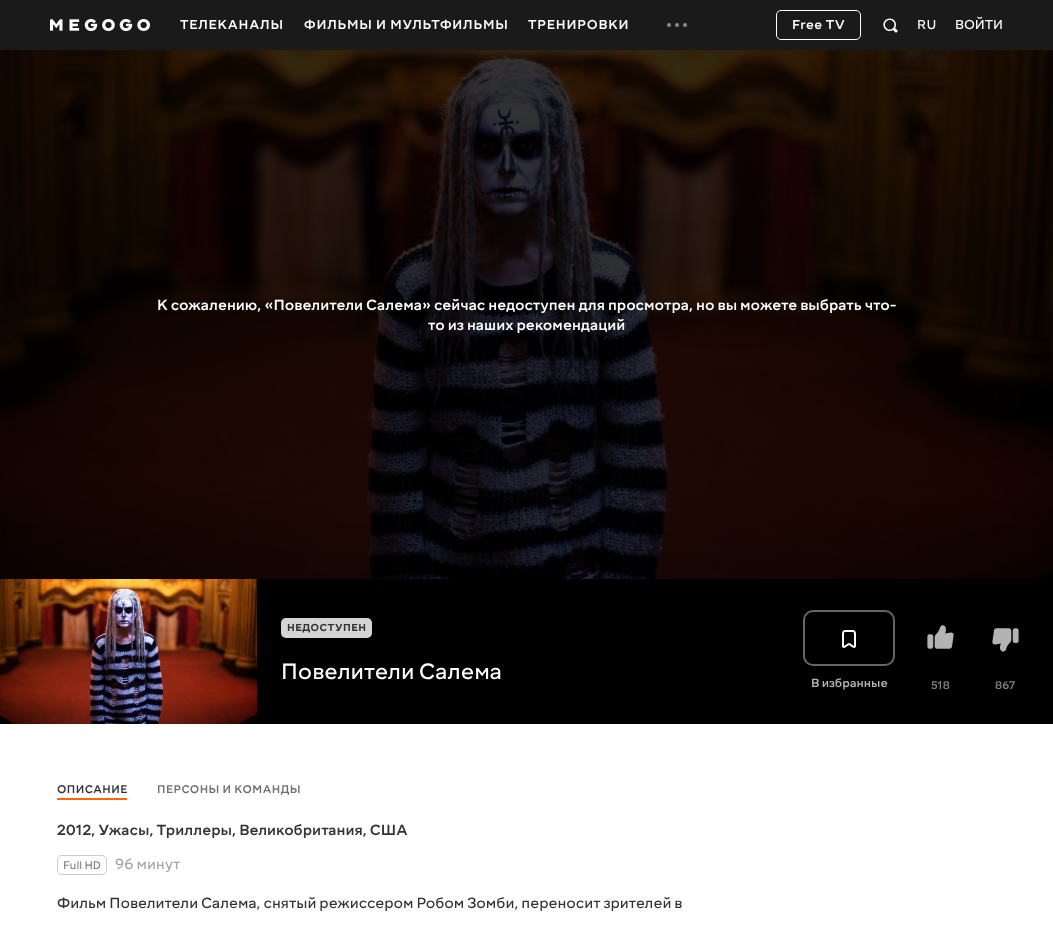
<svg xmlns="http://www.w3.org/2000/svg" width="1053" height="930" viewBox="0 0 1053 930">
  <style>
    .t1 { font: 500 14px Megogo; letter-spacing: 0.8px; fill: #fff; }
    .t2 { font: 500 14px Megogo; letter-spacing: 0.5px; fill: #fff; }
    .t3 { font: 14px Megogo; letter-spacing: 0.8px; fill: #fff; }
    .t4 { font: 14px Megogo; fill: #fff; }
    .t5 { font: 500 16px Megogo; fill: #fff; }
    .t6 { font: 600 11px Megogo; letter-spacing: 0.5px; fill: #333; }
    .t7 { font: 24px Megogo; fill: #fff; }
    .t8 { font: 500 13px Megogo; fill: #b3b3b3; }
    .t9 { font: 500 12px Megogo; fill: #808080; }
    .t10 { font: 500 12px Megogo; letter-spacing: 0.5px; fill: #333; }
    .t11 { font: 500 12px Megogo; letter-spacing: 0.5px; fill: #707070; }
    .t12 { font: 500 16px Megogo; fill: #333; }
    .t13 { font: 12px Megogo; fill: #808080; }
    .t14 { font: 16px Megogo; fill: #a6a6a6; }
    .t15 { font: 16px Megogo; fill: #333; }
  </style>
  <rect width="100%" height="100%" fill="#fff"/>
  <rect x="0" y="0" width="1053" height="50" fill="#1a1a1a"/>
  <image x="50" y="19" width="100" height="12" href="images/1.png"/>
  <text x="180" y="29" class="t1">ТЕЛЕКАНАЛЫ</text>
  <text x="304" y="29" class="t1">ФИЛЬМЫ И МУЛЬТФИЛЬМЫ</text>
  <text x="528" y="29" class="t1">ТРЕНИРОВКИ</text>
  <image x="667" y="23" width="20" height="4" href="images/2.png"/>
  <rect x="776.5" y="10.5" width="84" height="29" rx="4.5" fill="none" stroke="#fff"/>
  <text x="792" y="29" class="t2">Free TV</text>
  <image x="883" y="18" width="15" height="15" href="images/3.png"/>
  <text x="917" y="29" class="t3">RU</text>
  <text x="955" y="29" class="t4">ВОЙТИ</text>
  <rect x="257" y="579" width="796" height="145" fill="#000"/>
  <image x="0" y="50" width="1053" height="529" href="images/4.png"/>
  <text x="157" y="310" class="t5">К сожалению, «Повелители Салема» сейчас недоступен для просмотра, но вы можете выбрать что-</text>
  <text x="428" y="330" class="t5">то из наших рекомендаций</text>
  <image x="0" y="579" width="257" height="145" href="images/5.png"/>
  <rect x="281" y="618" width="91" height="20" rx="5" fill="#d5d5d5"/>
  <text x="287" y="631" class="t6">НЕДОСТУПЕН</text>
  <text x="281" y="679" class="t7">Повелители Салема</text>
  <rect x="804" y="611" width="90" height="54" rx="9" fill="none" stroke="#666" stroke-width="2"/>
  <image x="842" y="630" width="14" height="18" href="images/6.png"/>
  <text x="811" y="687" class="t8">В избранные</text>
  <image x="927" y="625" width="27" height="24" href="images/7.png"/>
  <text x="931" y="689" class="t9">518</text>
  <image x="992" y="628" width="27" height="24" href="images/8.png"/>
  <text x="995" y="689" class="t9">867</text>
  <text x="57" y="793" class="t10">ОПИСАНИЕ</text>
  <rect x="57" y="798" width="70" height="2" fill="#f60"/>
  <text x="157" y="793" class="t11">ПЕРСОНЫ И КОМАНДЫ</text>
  <text x="57" y="835" class="t12">2012, Ужасы, Триллеры, Великобритания, США</text>
  <rect x="57.5" y="855.5" width="49" height="19" rx="4.5" fill="none" stroke="#ccc"/>
  <text x="63" y="869" class="t13">Full HD</text>
  <text x="115" y="869" class="t14">96 минут</text>
  <text x="57" y="908" class="t15">Фильм Повелители Салема, снятый режиссером Робом Зомби, переносит зрителей в</text>
</svg>
